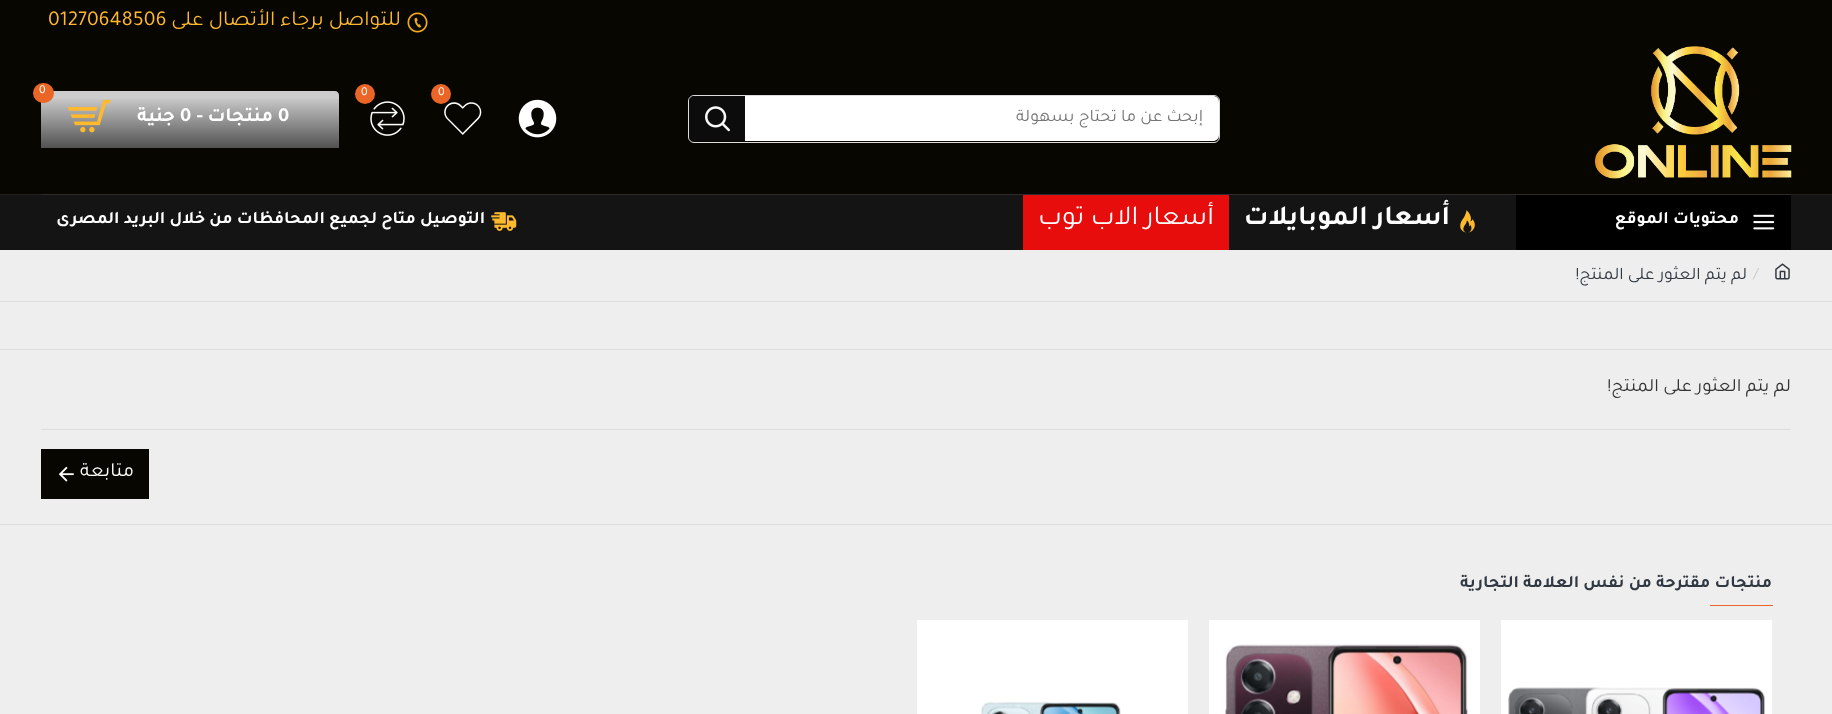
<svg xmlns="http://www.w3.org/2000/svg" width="1832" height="714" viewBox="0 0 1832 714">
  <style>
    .t1 { font: 21.25px Tajawal; direction: rtl; fill: #ffb92c; }
    .t2 { font: 21.25px Tajawal; fill: #ffb92c; }
    .t3 { font: 17.5px Tajawal; direction: rtl; fill: #757575; }
    .t4 { font: 12px Tajawal; fill: #fff; }
    .t5 { font: bold 20px Tajawal; fill: #fff; }
    .t6 { font: bold 20px Tajawal; direction: rtl; fill: #fff; }
    .t7 { font: bold 17.5px Tajawal; direction: rtl; fill: #fff; }
    .t8 { font: bold 27.5px Tajawal; direction: rtl; fill: #fff; }
    .t9 { font: 27.5px Tajawal; direction: rtl; fill: #fff; }
    .t10 { font: 17.5px Tajawal; fill: #ccc; }
    .t11 { font: 17.5px Tajawal; direction: rtl; fill: #303841; }
    .t12 { font: 18.75px Tajawal; direction: rtl; fill: #333; }
    .t13 { font: 20px Tajawal; direction: rtl; fill: #fff; }
    .t14 { font: bold 17.5px Tajawal; direction: rtl; fill: #303841; }
  </style>
  <defs>
    <linearGradient id="g1" gradientUnits="userSpaceOnUse" x1="190" y1="148" x2="190" y2="91"><stop offset="0" stop-color="#000" stop-opacity="0.6"/><stop offset="0.9" stop-color="#000" stop-opacity="0"/></linearGradient>
  </defs>
  <rect width="100%" height="100%" fill="#eee"/>
  <rect x="0" y="0" width="1832" height="194" fill="#070600"/>
  <image x="407" y="12" width="21" height="21" href="images/1.png"/>
  <text x="401" y="25" class="t1">للتواصل برجاء الأتصال على</text>
  <text x="48" y="25" class="t2">01270648506</text>
  <image x="1595" y="46" width="197" height="133" href="images/2.png"/>
  <rect x="688.5" y="95.5" width="531" height="47" rx="5.5" fill="none" stroke="#ddd"/>
  <path d="M745 96H1213C1216.5 96 1219 98.5 1219 102V135C1219 138.5 1216.5 141 1213 141H745Z" fill="#fff"/>
  <text x="1203" y="121" class="t3">إبحث عن ما تحتاج بسهولة</text>
  <path d="M695 96H745V141H695C691.5 141 689 138.5 689 135V102C689 98.5 691.5 96 695 96Z" fill="#0c0c0c"/>
  <image x="705" y="106" width="25" height="26" href="images/3.png"/>
  <image x="444" y="102" width="38" height="33" href="images/4.png"/>
  <circle cx="441" cy="94" r="10" fill="#eb6626"/>
  <text x="438" y="95" class="t4">0</text>
  <image x="370" y="101" width="35" height="35" href="images/5.png"/>
  <circle cx="365" cy="94" r="10" fill="#eb6626"/>
  <text x="361" y="95" class="t4">0</text>
  <image x="518" y="99" width="39" height="39" href="images/6.png"/>
  <path d="M41 91H335C337 91 339 93 339 95V148H41Z" fill="#ccc"/>
  <rect x="41" y="99" width="298" height="49" fill="url(#g1)"/>
  <rect x="33" y="83" width="21" height="20" rx="10" fill="#eb6626"/>
  <text x="39" y="93" class="t4">0</text>
  <text x="278" y="121" class="t5">0</text>
  <text x="273" y="121" class="t6">منتجات -</text>
  <text x="180" y="121" class="t5">0</text>
  <text x="175" y="121" class="t6">جنية</text>
  <image x="67" y="99" width="44" height="34" href="images/7.png"/>
  <rect x="0" y="194" width="1832" height="1" fill="#1f201f"/>
  <rect x="41" y="194" width="1750" height="1" fill="#2b2c2b"/>
  <rect x="0" y="195" width="1832" height="55" fill="#131413"/>
  <rect x="1516" y="195" width="275" height="55" fill="#000"/>
  <image x="1753" y="214" width="22" height="16" href="images/8.png"/>
  <text x="1739" y="223" class="t7">محتويات الموقع</text>
  <image x="1460" y="210" width="15" height="23" href="images/9.png"/>
  <text x="1450" y="224" class="t8">أسعار الموبايلات</text>
  <rect x="1023" y="195" width="206" height="55" fill="#e70d0d"/>
  <text x="1214" y="224" class="t9">أسعار الاب توب</text>
  <image x="491" y="212" width="26" height="19" href="images/10.png"/>
  <text x="485" y="223" class="t7">التوصيل متاح لجميع المحافظات من خلال البريد المصرى</text>
  <image x="1775" y="263" width="15" height="17" href="images/11.png"/>
  <text x="1753" y="279" class="t10">/</text>
  <text x="1747" y="279" class="t11">لم يتم العثور على المنتج!</text>
  <rect x="0" y="301" width="1832" height="1" fill="#ddd"/>
  <rect x="0" y="349" width="1832" height="1" fill="#ddd"/>
  <text x="1791" y="391" class="t12">لم يتم العثور على المنتج!</text>
  <rect x="41" y="429" width="1750" height="1" fill="#ddd"/>
  <rect x="41" y="449" width="108" height="50" fill="#070600"/>
  <text x="134" y="476" class="t13">متابعة</text>
  <image x="58" y="466" width="16" height="16" href="images/12.png"/>
  <rect x="0" y="524" width="1832" height="1" fill="#ddd"/>
  <text x="1772" y="587" class="t14">منتجات مقترحة من نفس العلامة التجارية</text>
  <rect x="1710" y="605" width="63" height="1" fill="#eb6626"/>
  <rect x="1501" y="620" width="271" height="94" fill="#fff"/>
  <image x="1508" y="687" width="257" height="27" href="images/13.png"/>
  <rect x="1209" y="620" width="271" height="94" fill="#fff"/>
  <image x="1225" y="644" width="243" height="70" href="images/14.png"/>
  <rect x="917" y="620" width="271" height="94" fill="#fff"/>
  <image x="981" y="702" width="140" height="12" href="images/15.png"/>
</svg>
